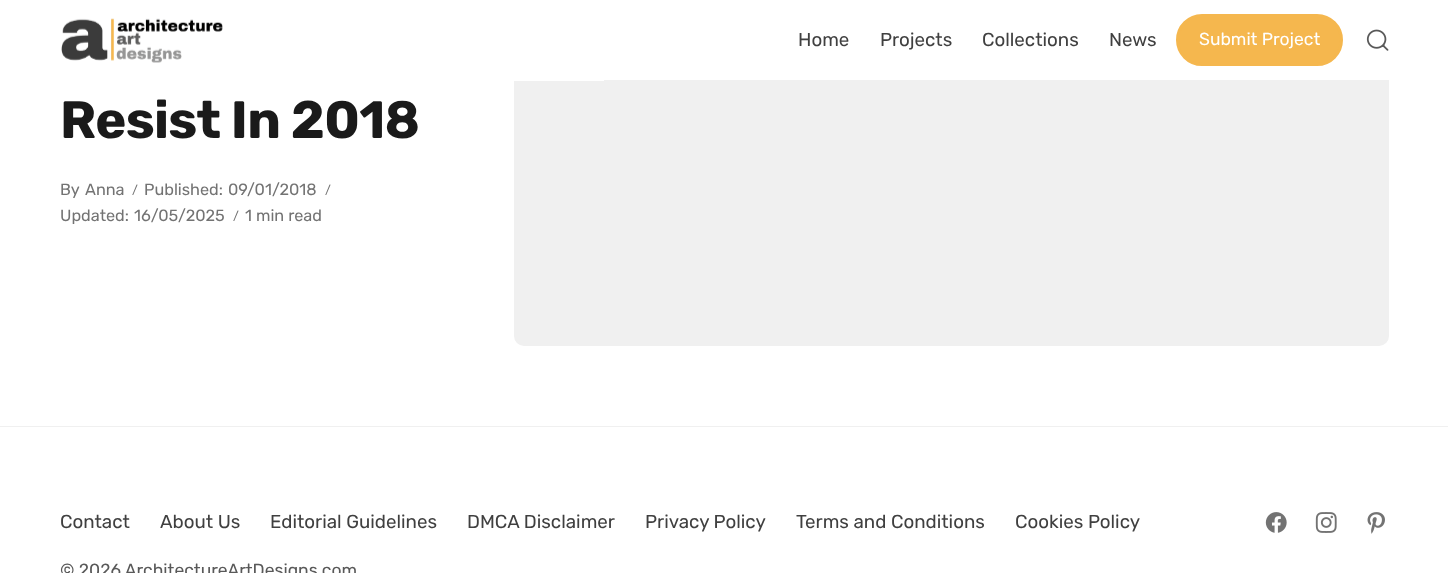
<svg xmlns="http://www.w3.org/2000/svg" width="1448" height="573" viewBox="0 0 1448 573">
  <style>
    .t1 { font: 18.75px Rubik; fill: #404040; }
    .t2 { font: 17.5px Rubik; fill: #fff; }
    .t3 { font: bold 52.5px Rubik; letter-spacing: -0.7px; fill: #1a1a1a; }
    .t4 { font: 16.25px Rubik; fill: #737373; }
    .t5 { font: 12px Rubik; fill: #737373; }
    .t6 { font: 17.5px Rubik; fill: #595959; }
  </style>
  <rect width="100%" height="100%" fill="#fff"/>
  <rect x="514" y="-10" width="875" height="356" rx="10" fill="#f0f0f0"/>
  <path d="M70 76V81H604V20H594V76Z" fill="#fff"/>
  <rect x="514" y="0" width="875" height="80" fill="#fff"/>
  <image x="61" y="18" width="162" height="45" href="images/1.png"/>
  <text x="798" y="46" class="t1">Home</text>
  <text x="880" y="46" class="t1">Projects</text>
  <text x="982" y="46" class="t1">Collections</text>
  <text x="1109" y="46" class="t1">News</text>
  <rect x="1177.5" y="15.5" width="164" height="49" rx="24.5" fill="#f5b74e" stroke="#f5b74e" stroke-width="3"/>
  <text x="1199" y="45" class="t2">Submit Project</text>
  <image x="1366" y="29" width="23" height="22" href="images/2.png"/>
  <text x="60" y="138" class="t3">Resist In 2018</text>
  <text x="60" y="195" class="t4">By</text>
  <text x="85" y="195" class="t4">Anna</text>
  <text x="132" y="194" class="t5">/</text>
  <text x="144" y="195" class="t4">Published:</text>
  <text x="228" y="195" class="t4">09/01/2018</text>
  <text x="325" y="194" class="t5">/</text>
  <text x="60" y="221" class="t4">Updated:</text>
  <text x="134" y="221" class="t4">16/05/2025</text>
  <text x="233" y="220" class="t5">/</text>
  <text x="245" y="221" class="t4">1 min read</text>
  <rect x="0" y="426" width="1448" height="1" fill="#f0f0f0"/>
  <text x="60" y="528" class="t1">Contact</text>
  <text x="160" y="528" class="t1">About Us</text>
  <text x="270" y="528" class="t1">Editorial Guidelines</text>
  <text x="467" y="528" class="t1">DMCA Disclaimer</text>
  <text x="645" y="528" class="t1">Privacy Policy</text>
  <text x="796" y="528" class="t1">Terms and Conditions</text>
  <text x="1015" y="528" class="t1">Cookies Policy</text>
  <image x="1265" y="512" width="22" height="21" href="images/3.png"/>
  <image x="1315" y="512" width="22" height="21" href="images/4.png"/>
  <image x="1367" y="512" width="18" height="22" href="images/5.png"/>
  <text x="60" y="576" class="t6">© 2026 ArchitectureArtDesigns.com</text>
</svg>
